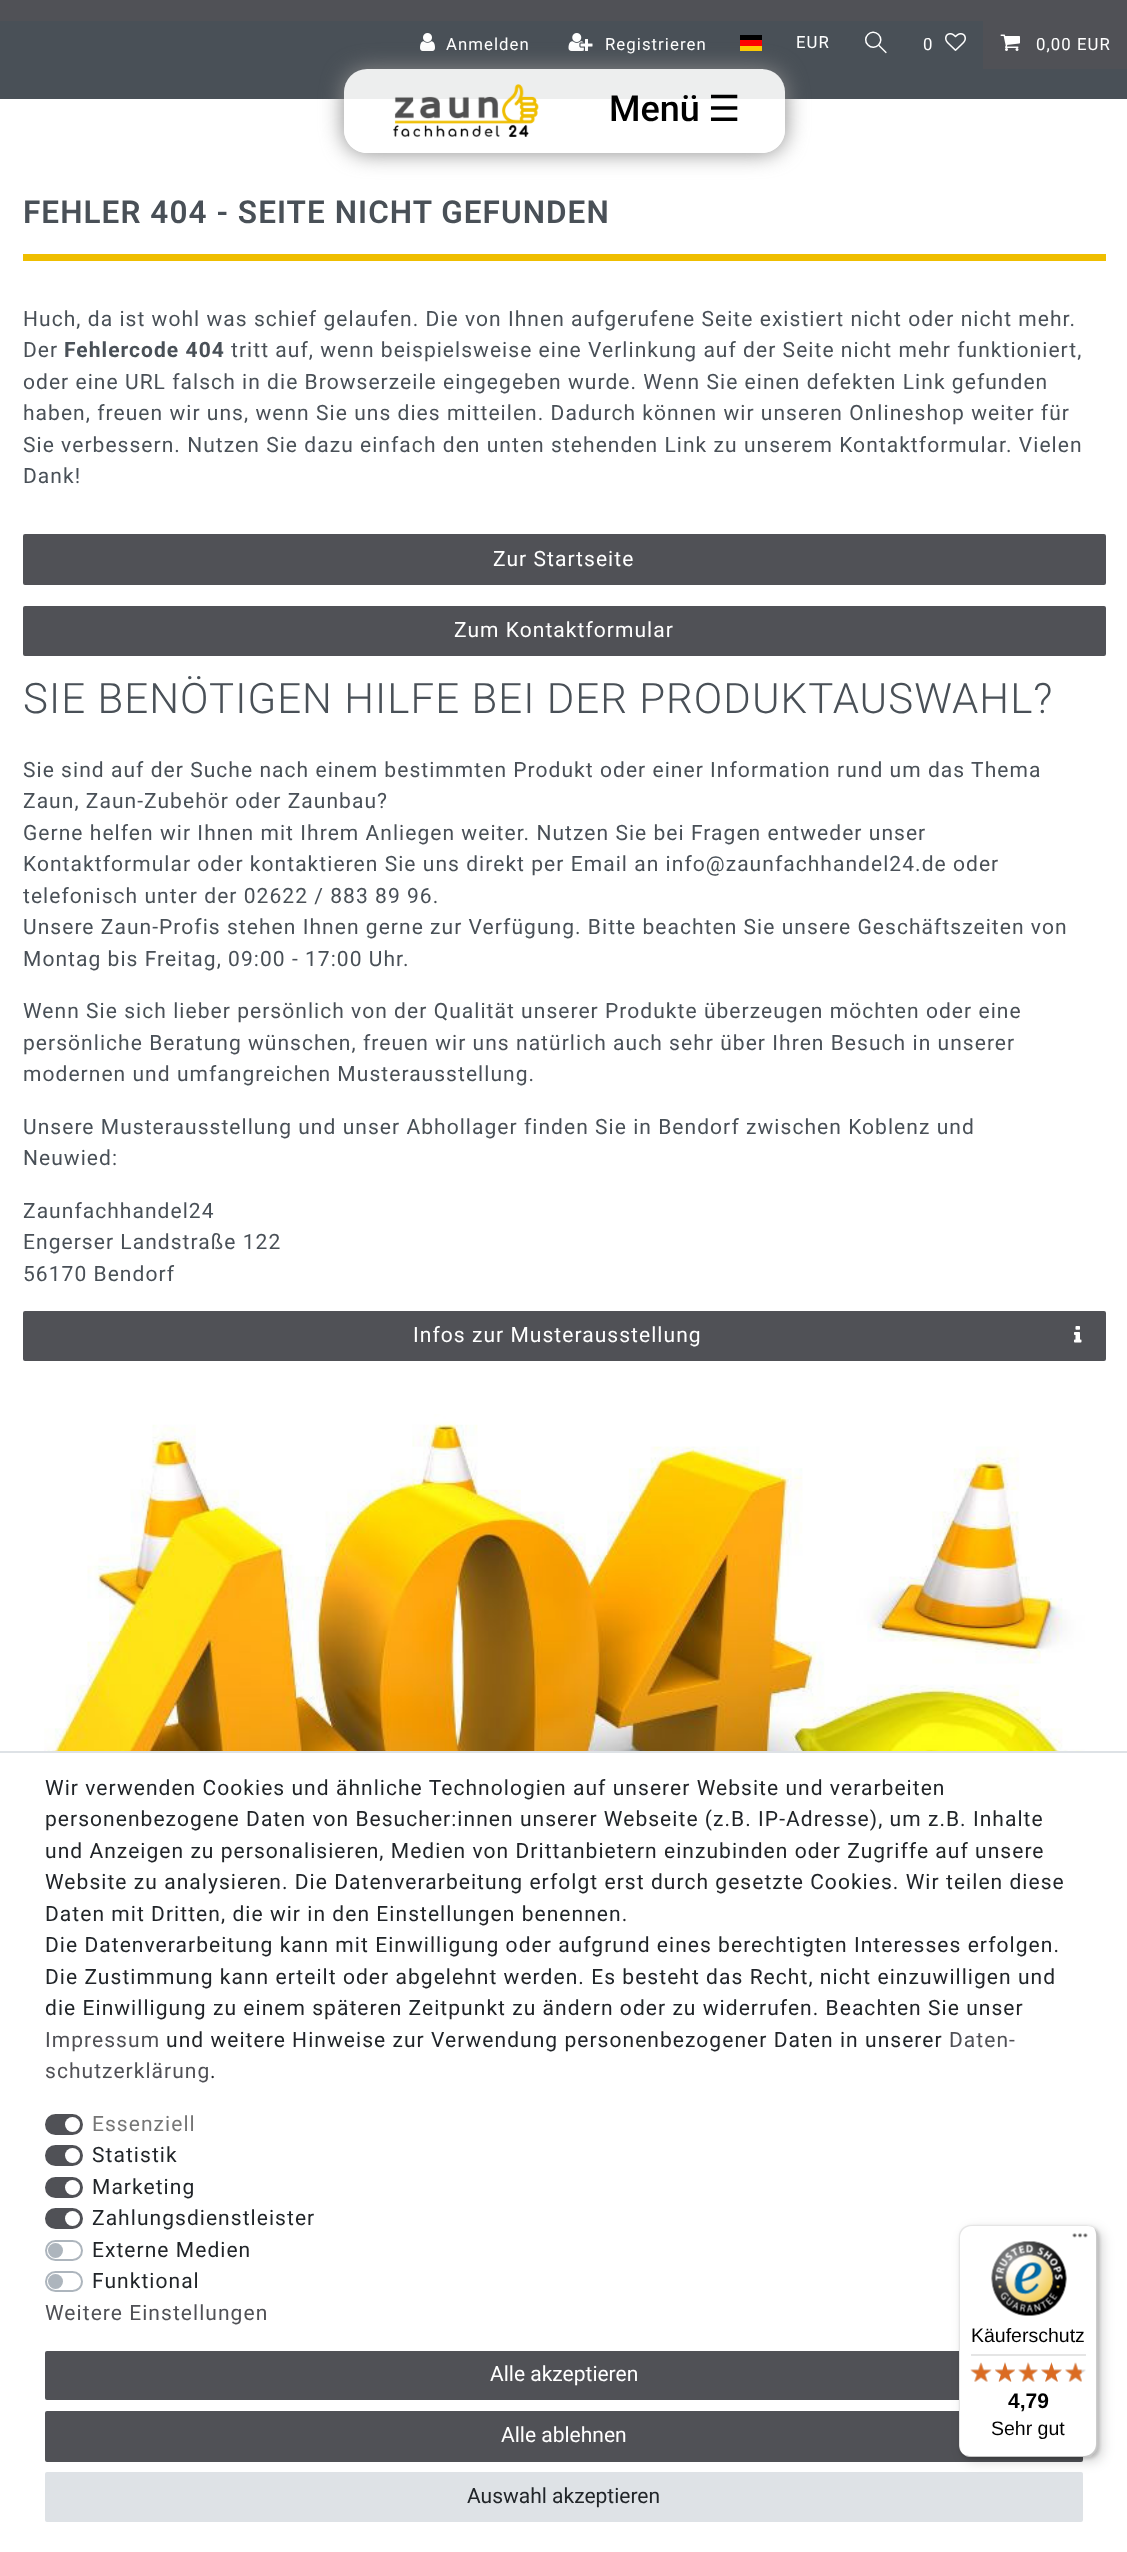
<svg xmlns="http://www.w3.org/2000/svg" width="1127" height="2552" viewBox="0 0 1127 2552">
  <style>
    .t1 { font: 16.75px Roboto; letter-spacing: 1.05px; fill: #fff; }
    .t2 { font: 500 36px Roboto; fill: #000; }
    .t3 { font: 36px DejaVu Sans; fill: #000; }
    .t4 { font: 600 31.5px Roboto; letter-spacing: 1.05px; fill: #495057; }
    .t5 { font: 21px Roboto; letter-spacing: 1.05px; fill: #495057; }
    .t6 { font: bold 21px Roboto; letter-spacing: 1.05px; fill: #495057; }
    .t7 { font: 21px Roboto; letter-spacing: 1.05px; fill: #fff; }
    .t8 { font: 300 42px Roboto; letter-spacing: 1.05px; fill: #495057; }
    .t9 { font: 21px Roboto; letter-spacing: 1.05px; fill: #212529; }
    .t10 { font: 21px Roboto; letter-spacing: 1.05px; fill: #505156; }
    .t11 { font: 21px Roboto; letter-spacing: 1.05px; fill: #767676; }
    .t12 { font: 21px Roboto; fill: #fff; }
    .t13 { font: 21px Roboto; fill: #212529; }
    .t14 { font: 19.5px Liberation Sans; fill: #000; }
    .t15 { font: bold 21px Liberation Sans; fill: #000; }
  </style>
  <defs>
    <clipPath id="clip1"><path d="M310 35H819V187H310ZM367 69H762C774.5 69 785 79.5 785 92V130C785 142.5 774.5 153 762 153H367C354.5 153 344 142.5 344 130V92C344 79.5 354.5 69 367 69Z" clip-rule="evenodd"/></clipPath>
  </defs>
  <rect width="100%" height="100%" fill="#fff"/>
  <rect x="0" y="0" width="1127" height="21" fill="#505156"/>
  <rect x="0" y="21" width="1127" height="78" fill="#495057"/>
  <image x="420" y="33" width="15" height="18" href="images/1.png"/>
  <text x="446" y="50" class="t1">Anmelden</text>
  <image x="568" y="33" width="25" height="18" href="images/2.png"/>
  <text x="605" y="50" class="t1">Registrieren</text>
  <rect x="740" y="46" width="22" height="5" fill="#fc0"/>
  <rect x="740" y="35" width="22" height="5" fill="#000"/>
  <rect x="740" y="40" width="22" height="6" fill="#f00"/>
  <text x="796" y="48" class="t1">EUR</text>
  <path d="M885.5 53L870.5 38V37.5C870.5 37 871 37 871.5 37L886.5 52C887 53 886 53.5 885.5 53Z" fill="#fff"/>
  <path d="M867.5 45.5C859.5 38 871.5 26.5 879 34C886.5 41.5 875 53.5 867.5 45.5Z" fill="#495057"/>
  <path d="M868 45C861 38 871.5 27.5 878.5 34.5C885.5 41.5 875 52 868 45Z" fill="none" stroke="#fff" stroke-width="1.5"/>
  <text x="923" y="50" class="t1">0</text>
  <image x="945" y="33" width="21" height="18" href="images/3.png"/>
  <rect x="983" y="21" width="144" height="48" fill="#505156"/>
  <image x="1000" y="34" width="20" height="17" href="images/4.png"/>
  <text x="1036" y="50" class="t1">0,00 EUR</text>
  <g clip-path="url(#clip1)">
    <rect x="344" y="69" width="441" height="84" rx="23" fill="#888" filter="blur(11px)"/>
  </g>
  <rect x="344" y="69" width="441" height="84" rx="23" fill="#ffffffe6"/>
  <image x="393" y="84" width="146" height="53" href="images/5.png"/>
  <text x="609" y="121" class="t2">Menü</text>
  <text x="708" y="121" class="t3">☰</text>
  <text x="23" y="223" class="t4">FEHLER 404 - SEITE NICHT GEFUNDEN</text>
  <rect x="23" y="254" width="1083" height="7" fill="#efbe00"/>
  <text x="23" y="326" class="t5">Huch, da ist wohl was schief gelaufen. Die von Ihnen aufgerufene Seite existiert nicht oder nicht mehr.</text>
  <text x="23" y="357" class="t5">Der</text>
  <text x="64" y="357" class="t6">Fehlercode 404</text>
  <text x="231" y="357" class="t5">tritt auf, wenn beispielsweise eine Verlinkung auf der Seite nicht mehr funktioniert,</text>
  <text x="23" y="389" class="t5">oder eine URL falsch in die Browserzeile eingegeben wurde. Wenn Sie einen defekten Link gefunden</text>
  <text x="23" y="420" class="t5">haben, freuen wir uns, wenn Sie uns dies mitteilen. Dadurch können wir unseren Onlineshop weiter für</text>
  <text x="23" y="452" class="t5">Sie verbessern. Nutzen Sie dazu einfach den unten stehenden Link zu unserem Kontaktformular. Vielen</text>
  <text x="23" y="483" class="t5">Dank!</text>
  <rect x="24" y="535" width="1081" height="49" rx="1" fill="#505156" stroke="#505156" stroke-width="2"/>
  <text x="493" y="566" class="t7">Zur Startseite</text>
  <rect x="24" y="607" width="1081" height="48" rx="1" fill="#505156" stroke="#505156" stroke-width="2"/>
  <text x="454" y="637" class="t7">Zum Kontaktformular</text>
  <text x="23" y="713" class="t8">SIE BENÖTIGEN HILFE BEI DER PRODUKTAUSWAHL?</text>
  <text x="23" y="777" class="t5">Sie sind auf der Suche nach einem bestimmten Produkt oder einer Information rund um das Thema</text>
  <text x="23" y="808" class="t5">Zaun, Zaun-Zubehör oder Zaunbau?</text>
  <text x="23" y="840" class="t5">Gerne helfen wir Ihnen mit Ihrem Anliegen weiter. Nutzen Sie bei Fragen entweder unser</text>
  <text x="23" y="871" class="t5">Kontaktformular oder kontaktieren Sie uns direkt per Email an info@zaunfachhandel24.de oder</text>
  <text x="23" y="903" class="t5">telefonisch unter der 02622 / 883 89 96.</text>
  <text x="23" y="934" class="t5">Unsere Zaun-Profis stehen Ihnen gerne zur Verfügung. Bitte beachten Sie unsere Geschäftszeiten von</text>
  <text x="23" y="966" class="t5">Montag bis Freitag, 09:00 - 17:00 Uhr.</text>
  <text x="23" y="1018" class="t5">Wenn Sie sich lieber persönlich von der Qualität unserer Produkte überzeugen möchten oder eine</text>
  <text x="23" y="1050" class="t5">persönliche Beratung wünschen, freuen wir uns natürlich auch sehr über Ihren Besuch in unserer</text>
  <text x="23" y="1081" class="t5">modernen und umfangreichen Musterausstellung.</text>
  <text x="23" y="1134" class="t5">Unsere Musterausstellung und unser Abhollager finden Sie in Bendorf zwischen Koblenz und</text>
  <text x="23" y="1165" class="t5">Neuwied:</text>
  <text x="23" y="1218" class="t5">Zaunfachhandel24</text>
  <text x="23" y="1249" class="t5">Engerser Landstraße 122</text>
  <text x="23" y="1281" class="t5">56170 Bendorf</text>
  <rect x="24" y="1312" width="1081" height="48" rx="1" fill="#505156" stroke="#505156" stroke-width="2"/>
  <text x="413" y="1342" class="t7">Infos zur Musterausstellung</text>
  <image x="1074" y="1326" width="8" height="17" href="images/6.png"/>
  <image x="33" y="1414" width="1073" height="337" href="images/7.png"/>
  <rect x="0" y="1751" width="1127" height="2" fill="#dee2e6"/>
  <text x="45" y="1795" class="t9">Wir verwenden Cookies und ähnliche Technologien auf unserer Website und verarbeiten</text>
  <text x="45" y="1826" class="t9">personenbezogene Daten von Besucher:innen unserer Webseite (z.B. IP-Adresse), um z.B. Inhalte</text>
  <text x="45" y="1858" class="t9">und Anzeigen zu personalisieren, Medien von Drittanbietern einzubinden oder Zugriffe auf unsere</text>
  <text x="45" y="1889" class="t9">Website zu analysieren. Die Datenverarbeitung erfolgt erst durch gesetzte Cookies. Wir teilen diese</text>
  <text x="45" y="1921" class="t9">Daten mit Dritten, die wir in den Einstellungen benennen.</text>
  <text x="45" y="1952" class="t9">Die Datenverarbeitung kann mit Einwilligung oder aufgrund eines berechtigten Interesses erfolgen.</text>
  <text x="45" y="1984" class="t9">Die Zustimmung kann erteilt oder abgelehnt werden. Es besteht das Recht, nicht einzuwilligen und</text>
  <text x="45" y="2015" class="t9">die Einwilligung zu einem späteren Zeitpunkt zu ändern oder zu widerrufen. Beachten Sie unser</text>
  <text x="45" y="2047" class="t10">Impressum</text>
  <text x="166" y="2047" class="t9">und weitere Hinweise zur Verwendung personenbezogener Daten in unserer</text>
  <text x="949" y="2047" class="t10">Daten-</text>
  <text x="45" y="2078" class="t10">schutzerklärung</text>
  <text x="210" y="2078" class="t9">.</text>
  <rect x="46" y="2115" width="36" height="19" rx="9.5" fill="#505156" stroke="#505156" stroke-width="2"/>
  <text x="92" y="2131" class="t11">Essenziell</text>
  <circle cx="72.5" cy="2124.5" r="7.5" fill="#fff"/>
  <rect x="46" y="2146" width="36" height="19" rx="9.5" fill="#505156" stroke="#505156" stroke-width="2"/>
  <text x="92" y="2162" class="t9">Statistik</text>
  <circle cx="72.5" cy="2155.5" r="7.5" fill="#fff"/>
  <rect x="46" y="2178" width="36" height="19" rx="9.5" fill="#505156" stroke="#505156" stroke-width="2"/>
  <text x="92" y="2194" class="t9">Marketing</text>
  <circle cx="72.5" cy="2187.5" r="7.5" fill="#fff"/>
  <rect x="46" y="2209" width="36" height="19" rx="9.5" fill="#505156" stroke="#505156" stroke-width="2"/>
  <text x="92" y="2225" class="t9">Zahlungsdienstleister</text>
  <circle cx="72.5" cy="2218.5" r="7.5" fill="#fff"/>
  <rect x="46" y="2241" width="36" height="19" rx="9.5" fill="none" stroke="#adb5bd" stroke-width="2"/>
  <text x="92" y="2257" class="t9">Externe Medien</text>
  <circle cx="55.5" cy="2250.5" r="7.5" fill="#adb5bd"/>
  <rect x="46" y="2272" width="36" height="19" rx="9.5" fill="none" stroke="#adb5bd" stroke-width="2"/>
  <text x="92" y="2288" class="t9">Funktional</text>
  <circle cx="55.5" cy="2281.5" r="7.5" fill="#adb5bd"/>
  <text x="45" y="2320" class="t10">Weitere Einstellungen</text>
  <rect x="46" y="2352" width="1036" height="47" rx="1" fill="#505156" stroke="#505156" stroke-width="2"/>
  <text x="490" y="2381" class="t12">Alle akzeptieren</text>
  <rect x="46" y="2412" width="1036" height="49" rx="1" fill="#505156" stroke="#505156" stroke-width="2"/>
  <text x="501" y="2442" class="t12">Alle ablehnen</text>
  <rect x="46" y="2473" width="1036" height="48" rx="1" fill="#dee2e6" stroke="#dee2e6" stroke-width="2"/>
  <text x="467" y="2503" class="t13">Auswahl akzeptieren</text>
  <rect x="963" y="2229" width="140" height="233" rx="12" fill="#00000026" filter="blur(6px)"/>
  <rect x="960" y="2226" width="140" height="233" rx="12" fill="#00000026" filter="blur(1.5px)"/>
  <rect x="959" y="2225" width="139" height="232" rx="12" fill="#fff"/>
  <path d="M972 2226H1088L1093 2227C1091 2226 1088 2225 1086 2225H971C964 2225 959 2230 959 2237V2445C959 2448 960 2451 962 2453C961 2451 960 2449 960 2446V2238C960 2231 965 2226 972 2226Z" fill="#0000001a"/>
  <path d="M965 2455C966 2456 969 2457 971 2457H1086C1093 2457 1098 2452 1098 2445V2237C1098 2233 1096 2230 1094 2228C1095 2230 1096 2232 1096 2235V2444C1096 2450 1091 2456 1084 2456H969Z" fill="#00000033"/>
  <path d="M963 2454C965 2456 968 2457 971 2457H1086C1093 2457 1098 2452 1098 2445V2237C1098 2234 1097 2231 1095 2229C1096 2231 1097 2233 1097 2236V2444C1097 2451 1092 2456 1085 2456H970C967 2456 965 2455 963 2454Z" fill="#32323233"/>
  <path d="M963 2454C965 2456 968 2457 971 2457H1086C1093 2457 1098 2452 1098 2445V2237C1098 2234 1097 2231 1095 2229C1096 2231 1097 2233 1097 2236V2444C1097 2451 1092 2456 1085 2456H970C967 2456 965 2455 963 2454Z" fill="#ffffff4d"/>
  <image x="1072" y="2233" width="16" height="5" href="images/8.png"/>
  <image x="991" y="2241" width="76" height="75" href="images/9.png"/>
  <text x="971" y="2342" class="t14">Käuferschutz</text>
  <rect x="971" y="2354" width="115" height="2" fill="#e5e5e5"/>
  <image x="971" y="2363" width="20" height="19" href="images/15.png"/>
  <image x="970" y="2362" width="22" height="20" href="images/10.png"/>
  <image x="995" y="2362" width="20" height="20" href="images/16.png"/>
  <image x="995" y="2362" width="20" height="20" href="images/11.png"/>
  <image x="1018" y="2362" width="20" height="20" href="images/17.png"/>
  <image x="1018" y="2362" width="20" height="20" href="images/12.png"/>
  <image x="1041" y="2362" width="21" height="20" href="images/18.png"/>
  <image x="1041" y="2362" width="21" height="20" href="images/13.png"/>
  <image x="1065" y="2363" width="21" height="19" href="images/19.png"/>
  <image x="1065" y="2362" width="17" height="20" href="images/14.png"/>
  <text x="1008" y="2408" class="t15">4,79</text>
  <text x="991" y="2435" class="t14">Sehr gut</text>
</svg>
